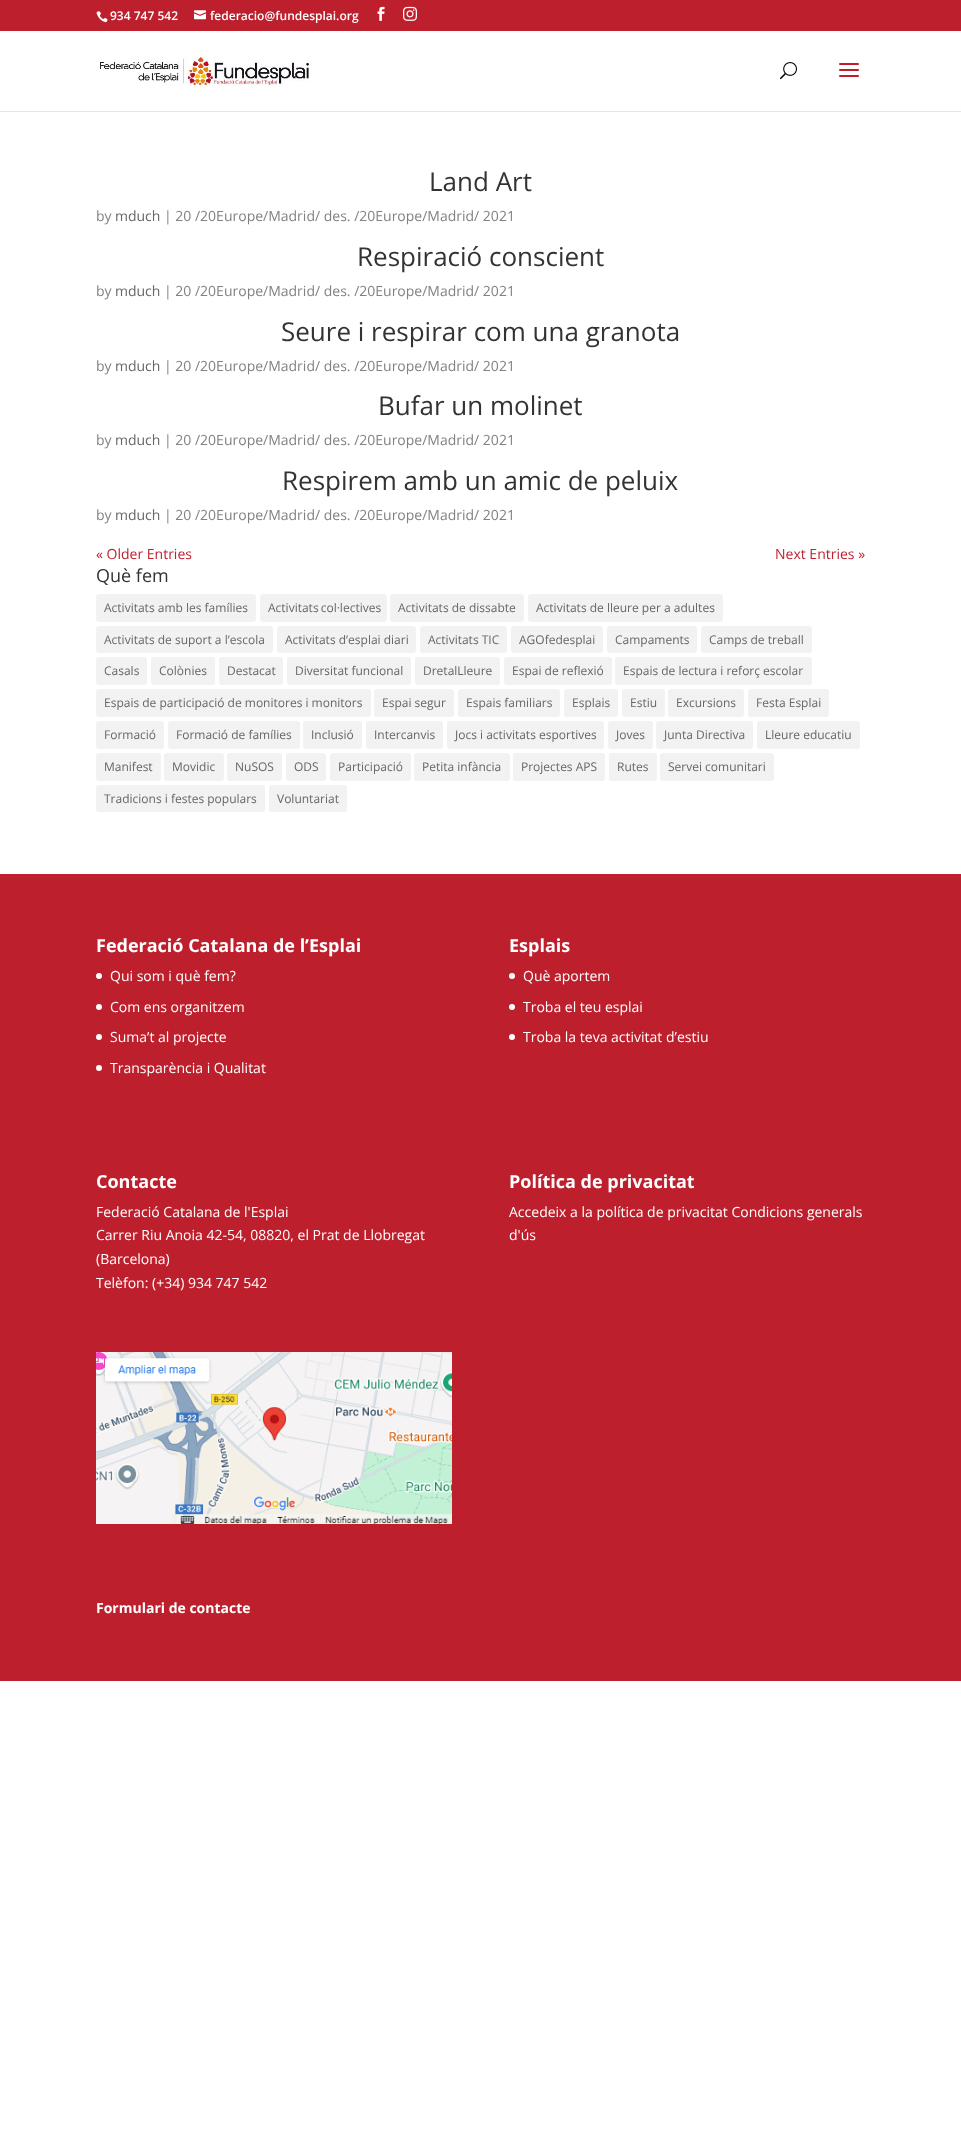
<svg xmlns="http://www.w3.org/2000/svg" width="961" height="2133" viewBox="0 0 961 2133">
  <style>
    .t1 { font: 600 12px Open Sans; fill: #fff; }
    .t2 { font: 26px Open Sans; fill: #333; }
    .t3 { font: 14px Open Sans; fill: #828282; }
    .t4 { font: 14px Open Sans; fill: #666; }
    .t5 { font: 14px Open Sans; fill: #be1f2d; }
    .t6 { font: 18px Open Sans; fill: #333; }
    .t7 { font: 12px Open Sans; fill: #666; }
    .t8 { font: bold 18px Open Sans; fill: #fff; }
    .t9 { font: 14px Open Sans; fill: #fff; }
    .t10 { font: bold 14px Open Sans; fill: #fff; }
  </style>
  <rect width="100%" height="100%" fill="#fff"/>
  <rect x="0" y="0" width="961" height="31" fill="#be1f2d"/>
  <image x="96" y="11" width="12" height="12" href="images/1.png"/>
  <text x="110" y="20" class="t1">934 747 542</text>
  <image x="194" y="10" width="12" height="10" href="images/2.png"/>
  <text x="210" y="20" class="t1">federacio@fundesplai.org</text>
  <image x="377" y="6" width="8" height="15" href="images/3.png"/>
  <image x="403" y="6" width="14" height="15" href="images/4.png"/>
  <rect x="0" y="111" width="961" height="1" fill="#e6e6e6"/>
  <image x="100" y="57" width="209" height="28" href="images/5.png"/>
  <image x="780" y="62" width="17" height="18" href="images/6.png"/>
  <image x="839" y="63" width="20" height="14" href="images/7.png"/>
  <text x="429" y="191" class="t2">Land Art</text>
  <text x="96" y="221" class="t3">by</text>
  <text x="115" y="221" class="t4">mduch</text>
  <text x="164" y="221" class="t3">| 20 /20Europe/Madrid/ des. /20Europe/Madrid/ 2021</text>
  <text x="357" y="266" class="t2">Respiració conscient</text>
  <text x="96" y="296" class="t3">by</text>
  <text x="115" y="296" class="t4">mduch</text>
  <text x="164" y="296" class="t3">| 20 /20Europe/Madrid/ des. /20Europe/Madrid/ 2021</text>
  <text x="281" y="341" class="t2">Seure i respirar com una granota</text>
  <text x="96" y="371" class="t3">by</text>
  <text x="115" y="371" class="t4">mduch</text>
  <text x="164" y="371" class="t3">| 20 /20Europe/Madrid/ des. /20Europe/Madrid/ 2021</text>
  <text x="378" y="415" class="t2">Bufar un molinet</text>
  <text x="96" y="445" class="t3">by</text>
  <text x="115" y="445" class="t4">mduch</text>
  <text x="164" y="445" class="t3">| 20 /20Europe/Madrid/ des. /20Europe/Madrid/ 2021</text>
  <text x="282" y="490" class="t2">Respirem amb un amic de peluix</text>
  <text x="96" y="520" class="t3">by</text>
  <text x="115" y="520" class="t4">mduch</text>
  <text x="164" y="520" class="t3">| 20 /20Europe/Madrid/ des. /20Europe/Madrid/ 2021</text>
  <text x="96" y="559" class="t5">« Older Entries</text>
  <text x="775" y="559" class="t5">Next Entries »</text>
  <text x="96" y="582" class="t6">Què fem</text>
  <rect x="96" y="594" width="160" height="28" rx="3" fill="#f2f2f2"/>
  <text x="104" y="612" class="t7">Activitats amb les famílies</text>
  <rect x="260" y="594" width="127" height="28" rx="3" fill="#f2f2f2"/>
  <text x="268" y="612" word-spacing="-1" class="t7">Activitats col·lectives</text>
  <rect x="390" y="594" width="134" height="28" rx="3" fill="#f2f2f2"/>
  <text x="398" y="612" class="t7">Activitats de dissabte</text>
  <rect x="528" y="594" width="195" height="28" rx="3" fill="#f2f2f2"/>
  <text x="536" y="612" class="t7">Activitats de lleure per a adultes</text>
  <rect x="96" y="626" width="177" height="27" rx="3" fill="#f2f2f2"/>
  <text x="104" y="644" class="t7">Activitats de suport a l’escola</text>
  <rect x="277" y="626" width="139" height="27" rx="3" fill="#f2f2f2"/>
  <text x="285" y="644" class="t7">Activitats d’esplai diari</text>
  <rect x="420" y="626" width="87" height="27" rx="3" fill="#f2f2f2"/>
  <text x="428" y="644" class="t7">Activitats TIC</text>
  <rect x="511" y="626" width="92" height="27" rx="3" fill="#f2f2f2"/>
  <text x="519" y="644" class="t7">AGOfedesplai</text>
  <rect x="607" y="626" width="90" height="27" rx="3" fill="#f2f2f2"/>
  <text x="615" y="644" class="t7">Campaments</text>
  <rect x="701" y="626" width="111" height="27" rx="3" fill="#f2f2f2"/>
  <text x="709" y="644" class="t7">Camps de treball</text>
  <rect x="96" y="657" width="51" height="28" rx="3" fill="#f2f2f2"/>
  <text x="104" y="675" class="t7">Casals</text>
  <rect x="151" y="657" width="64" height="28" rx="3" fill="#f2f2f2"/>
  <text x="159" y="675" class="t7">Colònies</text>
  <rect x="219" y="657" width="64" height="28" rx="3" fill="#f2f2f2"/>
  <text x="227" y="675" class="t7">Destacat</text>
  <rect x="287" y="657" width="124" height="28" rx="3" fill="#f2f2f2"/>
  <text x="295" y="675" class="t7">Diversitat funcional</text>
  <rect x="415" y="657" width="85" height="28" rx="3" fill="#f2f2f2"/>
  <text x="423" y="675" class="t7">DretalLleure</text>
  <rect x="504" y="657" width="108" height="28" rx="3" fill="#f2f2f2"/>
  <text x="512" y="675" class="t7">Espai de reflexió</text>
  <rect x="615" y="657" width="197" height="28" rx="3" fill="#f2f2f2"/>
  <text x="623" y="675" class="t7">Espais de lectura i reforç escolar</text>
  <rect x="96" y="689" width="275" height="28" rx="3" fill="#f2f2f2"/>
  <text x="104" y="707" class="t7">Espais de participació de monitores i monitors</text>
  <rect x="374" y="689" width="80" height="28" rx="3" fill="#f2f2f2"/>
  <text x="382" y="707" class="t7">Espai segur</text>
  <rect x="458" y="689" width="102" height="28" rx="3" fill="#f2f2f2"/>
  <text x="466" y="707" class="t7">Espais familiars</text>
  <rect x="564" y="689" width="54" height="28" rx="3" fill="#f2f2f2"/>
  <text x="572" y="707" class="t7">Esplais</text>
  <rect x="622" y="689" width="43" height="28" rx="3" fill="#f2f2f2"/>
  <text x="630" y="707" class="t7">Estiu</text>
  <rect x="668" y="689" width="76" height="28" rx="3" fill="#f2f2f2"/>
  <text x="676" y="707" class="t7">Excursions</text>
  <rect x="748" y="689" width="81" height="28" rx="3" fill="#f2f2f2"/>
  <text x="756" y="707" class="t7">Festa Esplai</text>
  <rect x="96" y="721" width="68" height="28" rx="3" fill="#f2f2f2"/>
  <text x="104" y="739" class="t7">Formació</text>
  <rect x="168" y="721" width="132" height="28" rx="3" fill="#f2f2f2"/>
  <text x="176" y="739" class="t7">Formació de famílies</text>
  <rect x="303" y="721" width="59" height="28" rx="3" fill="#f2f2f2"/>
  <text x="311" y="739" class="t7">Inclusió</text>
  <rect x="366" y="721" width="77" height="28" rx="3" fill="#f2f2f2"/>
  <text x="374" y="739" class="t7">Intercanvis</text>
  <rect x="447" y="721" width="157" height="28" rx="3" fill="#f2f2f2"/>
  <text x="455" y="739" class="t7">Jocs i activitats esportives</text>
  <rect x="608" y="721" width="45" height="28" rx="3" fill="#f2f2f2"/>
  <text x="616" y="739" class="t7">Joves</text>
  <rect x="656" y="721" width="97" height="28" rx="3" fill="#f2f2f2"/>
  <text x="664" y="739" class="t7">Junta Directiva</text>
  <rect x="757" y="721" width="103" height="28" rx="3" fill="#f2f2f2"/>
  <text x="765" y="739" class="t7">Lleure educatiu</text>
  <rect x="96" y="753" width="65" height="28" rx="3" fill="#f2f2f2"/>
  <text x="104" y="771" class="t7">Manifest</text>
  <rect x="164" y="753" width="60" height="28" rx="3" fill="#f2f2f2"/>
  <text x="172" y="771" class="t7">Movidic</text>
  <rect x="227" y="753" width="55" height="28" rx="3" fill="#f2f2f2"/>
  <text x="235" y="771" class="t7">NuSOS</text>
  <rect x="286" y="753" width="40" height="28" rx="3" fill="#f2f2f2"/>
  <text x="294" y="771" class="t7">ODS</text>
  <rect x="330" y="753" width="81" height="28" rx="3" fill="#f2f2f2"/>
  <text x="338" y="771" class="t7">Participació</text>
  <rect x="414" y="753" width="96" height="28" rx="3" fill="#f2f2f2"/>
  <text x="422" y="771" class="t7">Petita infància</text>
  <rect x="513" y="753" width="92" height="28" rx="3" fill="#f2f2f2"/>
  <text x="521" y="771" class="t7">Projectes APS</text>
  <rect x="609" y="753" width="48" height="28" rx="3" fill="#f2f2f2"/>
  <text x="617" y="771" class="t7">Rutes</text>
  <rect x="660" y="753" width="114" height="28" rx="3" fill="#f2f2f2"/>
  <text x="668" y="771" class="t7">Servei comunitari</text>
  <rect x="96" y="785" width="169" height="27" rx="3" fill="#f2f2f2"/>
  <text x="104" y="803" class="t7">Tradicions i festes populars</text>
  <rect x="269" y="785" width="78" height="27" rx="3" fill="#f2f2f2"/>
  <text x="277" y="803" class="t7">Voluntariat</text>
  <rect x="0" y="874" width="961" height="807" fill="#be1f2d"/>
  <text x="96" y="952" class="t8">Federació Catalana de l’Esplai</text>
  <circle cx="99" cy="976" r="3" fill="#fff"/>
  <text x="110" y="981" class="t9">Qui som i què fem?</text>
  <circle cx="99" cy="1007" r="3" fill="#fff"/>
  <text x="110" y="1012" class="t9">Com ens organitzem</text>
  <circle cx="99" cy="1037" r="3" fill="#fff"/>
  <text x="110" y="1042" class="t9">Suma’t al projecte</text>
  <circle cx="99" cy="1068" r="3" fill="#fff"/>
  <text x="110" y="1073" class="t9">Transparència i Qualitat</text>
  <text x="509" y="952" class="t8">Esplais</text>
  <circle cx="512" cy="976" r="3" fill="#fff"/>
  <text x="523" y="981" class="t9">Què aportem</text>
  <circle cx="512" cy="1007" r="3" fill="#fff"/>
  <text x="523" y="1012" class="t9">Troba el teu esplai</text>
  <circle cx="512" cy="1037" r="3" fill="#fff"/>
  <text x="523" y="1042" class="t9">Troba la teva activitat d’estiu</text>
  <text x="96" y="1188" class="t8">Contacte</text>
  <text x="96" y="1217" class="t9">Federació Catalana de l'Esplai</text>
  <text x="96" y="1240" class="t9">Carrer Riu Anoia 42-54, 08820, el Prat de Llobregat</text>
  <text x="96" y="1264" class="t9">(Barcelona)</text>
  <text x="96" y="1288" class="t9">Telèfon: (+34) 934 747 542</text>
  <image x="96" y="1352" width="356" height="172" href="images/8.png"/>
  <text x="96" y="1613" class="t10">Formulari de contacte</text>
  <text x="509" y="1188" class="t8">Política de privacitat</text>
  <text x="509" y="1217" class="t9">Accedeix a la política de privacitat Condicions generals</text>
  <text x="509" y="1240" class="t9">d'ús</text>
</svg>
